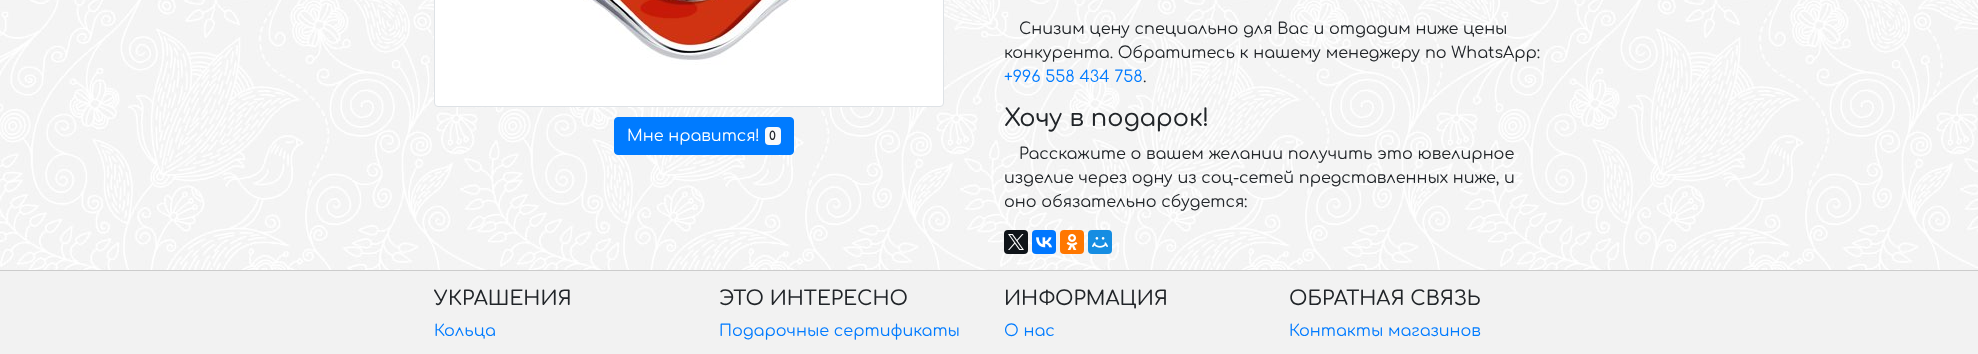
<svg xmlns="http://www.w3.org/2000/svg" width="1978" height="354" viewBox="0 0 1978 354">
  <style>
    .t1 { font: 16px Comfortaa; fill: #fff; }
    .t2 { font: bold 12px Comfortaa; fill: #212529; }
    .t3 { font: 16px Comfortaa; fill: #212529; }
    .t4 { font: 16px Comfortaa; fill: #007bff; }
    .t5 { font: 500 24px Comfortaa; fill: #212529; }
    .t6 { font: 500 20px Comfortaa; fill: #212529; }
  </style>
  <rect width="100%" height="100%" fill="#fff"/>
  <image x="0" y="0" width="1978" height="270" href="images/1.png"/>
  <rect x="434.5" y="-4.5" width="509" height="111" rx="3.5" fill="#fff" stroke="#dee2e6"/>
  <image x="583" y="0" width="213" height="65" href="images/2.png"/>
  <rect x="614.5" y="117.5" width="179" height="37" rx="3.5" fill="#007bff" stroke="#007bff"/>
  <text x="627" y="141" class="t1">Мне нравится!</text>
  <rect x="765" y="127" width="16" height="18" rx="4" fill="#f8f9fa"/>
  <text x="769" y="140" class="t2">0</text>
  <text x="1019" y="34" class="t3">Снизим цену специально для Вас и отдадим ниже цены</text>
  <text x="1004" y="58" class="t3">конкурента. Обратитесь к нашему менеджеру по WhatsApp:</text>
  <text x="1004" y="82" class="t4">+996 558 434 758</text>
  <text x="1143" y="82" class="t3">.</text>
  <text x="1004" y="126" class="t5">Хочу в подарок!</text>
  <text x="1019" y="159" class="t3">Расскажите о вашем желании получить это ювелирное</text>
  <text x="1004" y="183" class="t3">изделие через одну из соц-сетей представленных ниже, и</text>
  <text x="1004" y="207" class="t3">оно обязательно сбудется:</text>
  <rect x="1004" y="230" width="24" height="24" rx="4" fill="#0f1419"/>
  <image x="1008" y="234" width="16" height="16" href="images/3.png"/>
  <rect x="1032" y="230" width="24" height="24" rx="4" fill="#07f"/>
  <image x="1036" y="237" width="16" height="11" href="images/4.png"/>
  <rect x="1060" y="230" width="24" height="24" rx="4" fill="#f70"/>
  <image x="1066" y="234" width="12" height="16" href="images/5.png"/>
  <rect x="1088" y="230" width="24" height="24" rx="4" fill="#168de2"/>
  <image x="1092" y="237" width="16" height="11" href="images/6.png"/>
  <rect x="0" y="270" width="1978" height="1" fill="#ccc"/>
  <rect x="0" y="271" width="1978" height="83" fill="#f2f2f2"/>
  <text x="434" y="305" class="t6">УКРАШЕНИЯ</text>
  <text x="434" y="336" class="t4">Кольца</text>
  <text x="719" y="305" class="t6">ЭТО ИНТЕРЕСНО</text>
  <text x="719" y="336" class="t4">Подарочные сертификаты</text>
  <text x="1004" y="305" class="t6">ИНФОРМАЦИЯ</text>
  <text x="1004" y="336" class="t4">О нас</text>
  <text x="1289" y="305" class="t6">ОБРАТНАЯ СВЯЗЬ</text>
  <text x="1289" y="336" class="t4">Контакты магазинов</text>
</svg>
